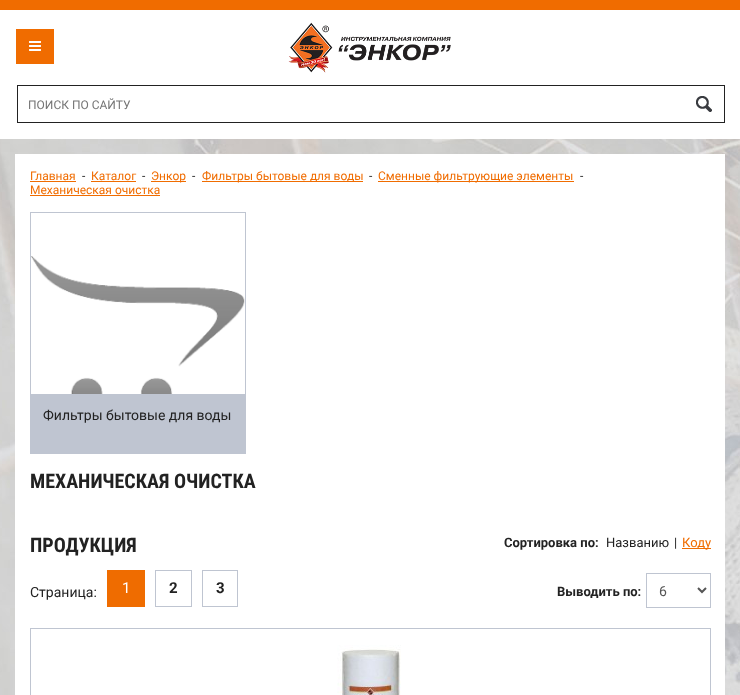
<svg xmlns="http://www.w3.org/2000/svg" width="740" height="695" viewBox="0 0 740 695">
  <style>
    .t1 { font: 12px Roboto; fill: #757575; }
    .t2 { font: 12px Roboto; fill: #f06c00; }
    .t3 { font: 12px Roboto; fill: #222; }
    .t4 { font: 14px Roboto; fill: #222; }
    .t5 { font: bold 20px Roboto Condensed; fill: #222; }
    .t6 { font: bold 13px Roboto; fill: #222; }
    .t7 { font: 13px Roboto; fill: #222; }
    .t8 { font: 13px Roboto; fill: #f06c00; }
    .t9 { font: 15px Roboto; fill: #fff; }
    .t10 { font: bold 15px Roboto; fill: #222; }
    .t11 { font: 14px Roboto; fill: #555; }
  </style>
  <rect width="100%" height="100%" fill="#fff"/>
  <image x="0" y="139" width="740" height="556" href="images/1.png"/>
  <rect x="0" y="0" width="740" height="10" fill="#f06c00"/>
  <rect x="16" y="29" width="38" height="35" fill="#f06c00"/>
  <image x="29" y="41" width="12" height="10" href="images/2.png"/>
  <image x="288" y="22" width="163" height="51" href="images/3.png"/>
  <rect x="17" y="85" width="708" height="1" fill="#222"/>
  <rect x="17" y="122" width="670" height="1" fill="#222"/>
  <rect x="17" y="85" width="1" height="38" fill="#222"/>
  <text x="28" y="109" class="t1">ПОИСК ПО САЙТУ</text>
  <rect x="724" y="85" width="1" height="38" fill="#222"/>
  <rect x="684" y="122" width="41" height="1" fill="#222"/>
  <image x="696" y="96" width="16" height="16" href="images/4.png"/>
  <rect x="15" y="154" width="710" height="541" fill="#fff"/>
  <text x="30" y="180" class="t2">Главная</text>
  <rect x="30" y="181" width="46" height="1" fill="#f06c00"/>
  <text x="82" y="180" class="t3">-</text>
  <text x="91" y="180" class="t2">Каталог</text>
  <rect x="91" y="181" width="45" height="1" fill="#f06c00"/>
  <text x="142" y="180" class="t3">-</text>
  <rect x="151" y="181" width="35" height="1" fill="#f06c00"/>
  <text x="151" y="180" class="t2">Энкор</text>
  <text x="192" y="180" class="t3">-</text>
  <rect x="202" y="181" width="161" height="1" fill="#f06c00"/>
  <text x="202" y="180" class="t2">Фильтры бытовые для воды</text>
  <text x="369" y="180" class="t3">-</text>
  <rect x="378" y="181" width="196" height="1" fill="#f06c00"/>
  <text x="378" y="180" class="t2">Сменные фильтрующие элементы</text>
  <text x="580" y="180" class="t3">-</text>
  <text x="30" y="194" class="t2">Механическая очистка</text>
  <rect x="30" y="195" width="130" height="1" fill="#f06c00"/>
  <rect x="30.5" y="212.5" width="215" height="241" fill="none" stroke="#bfc5d1"/>
  <image x="31" y="256" width="214" height="138" href="images/5.png"/>
  <rect x="31" y="394" width="214" height="59" fill="#bfc5d1"/>
  <text x="43" y="420" class="t4">Фильтры бытовые для воды</text>
  <text x="30" y="488" class="t5">МЕХАНИЧЕСКАЯ ОЧИСТКА</text>
  <text x="30" y="552" class="t5">ПРОДУКЦИЯ</text>
  <text x="504" y="547" class="t6">Сортировка по:</text>
  <text x="606" y="547" class="t7">Названию</text>
  <text x="674" y="547" class="t7">|</text>
  <rect x="682" y="548" width="29" height="1" fill="#f06c00"/>
  <text x="682" y="547" class="t8">Коду</text>
  <text x="30" y="597" class="t4">Страница:</text>
  <rect x="107" y="570" width="38" height="37" fill="#ef6c00"/>
  <text x="122" y="593" class="t9">1</text>
  <rect x="155.5" y="570.5" width="36" height="36" fill="none" stroke="#bfc5d1"/>
  <text x="169" y="593" class="t10">2</text>
  <rect x="202.5" y="570.5" width="35" height="36" fill="none" stroke="#bfc5d1"/>
  <text x="216" y="593" class="t10">3</text>
  <text x="557" y="596" class="t6">Выводить по:</text>
  <rect x="646.5" y="573.5" width="64" height="34" fill="none" stroke="#bfc5d1"/>
  <path d="M698 588L702 592L706 588" fill="none" stroke="#555" stroke-width="2"/>
  <text x="659" y="596" class="t11">6</text>
  <rect x="30.5" y="628.5" width="680" height="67" fill="none" stroke="#bfc5d1"/>
  <image x="337" y="645" width="64" height="50" href="images/6.png"/>
</svg>
